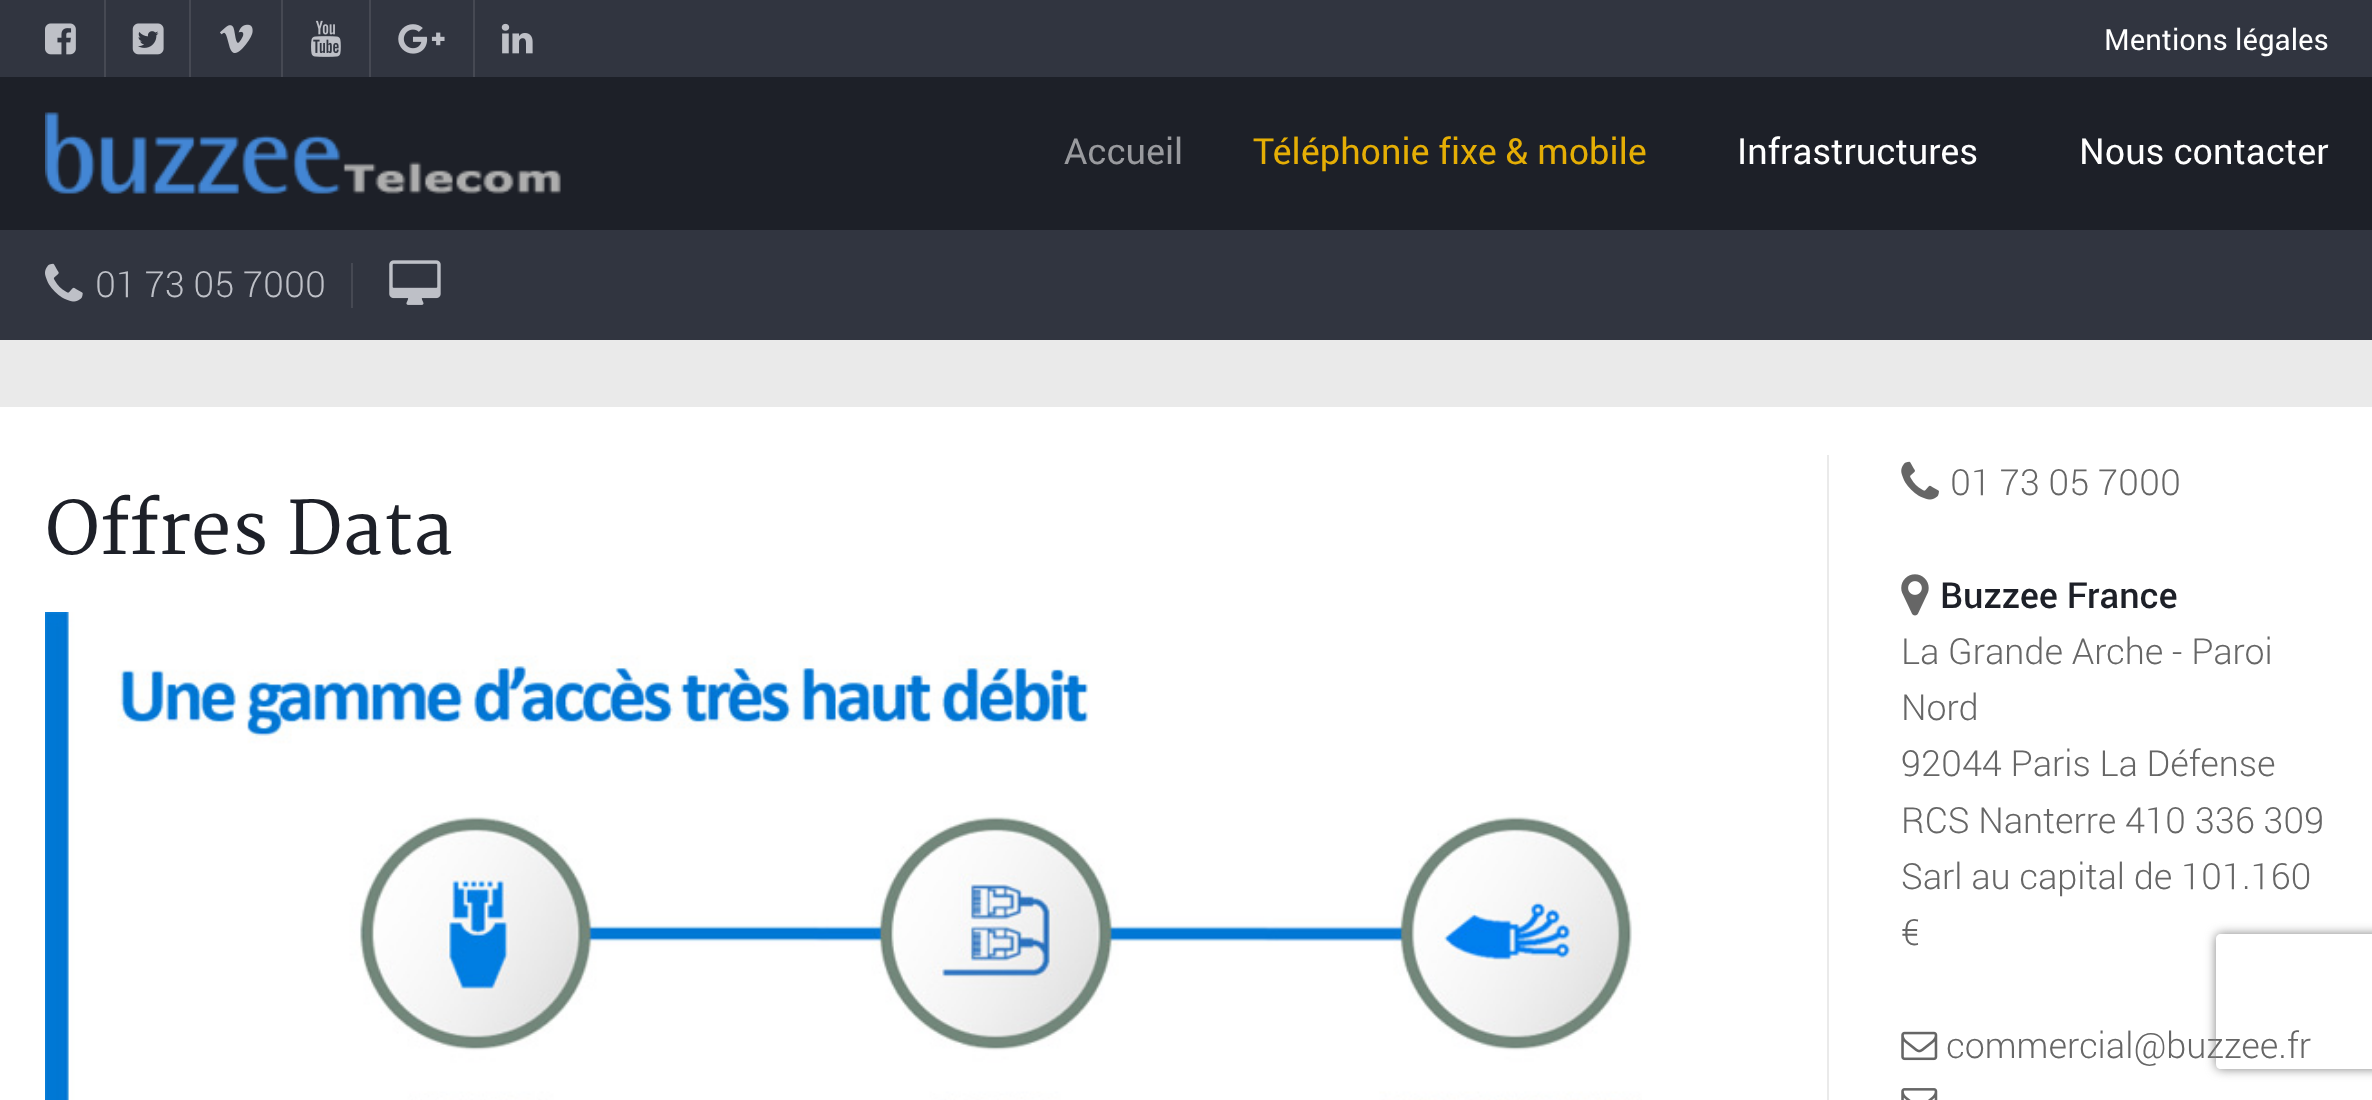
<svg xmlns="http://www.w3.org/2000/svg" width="2372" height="1100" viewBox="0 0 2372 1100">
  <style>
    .t1 { font: 29.25px roboto; fill: #fff; }
    .t2 { font: 36px roboto; fill: #999a9e; }
    .t3 { font: 36px roboto; fill: #e5ae05; }
    .t4 { font: 36px roboto; fill: #fff; }
    .t5 { font: 300 36px Roboto; fill: #bec0c7; }
    .t6 { font: 72px Merriweather; fill: #1d2028; }
    .t7 { font: 300 36px Roboto; fill: #666; }
    .t8 { font: 500 36px Roboto; fill: #1d2028; }
  </style>
  <defs>
    <clipPath id="clip1"><path d="M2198 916H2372V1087H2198ZM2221 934H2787C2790 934 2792 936 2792 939V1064C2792 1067 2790 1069 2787 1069H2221C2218 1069 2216 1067 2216 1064V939C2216 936 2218 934 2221 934Z" clip-rule="evenodd"/></clipPath>
  </defs>
  <rect width="100%" height="100%" fill="#fff"/>
  <rect x="0" y="0" width="2372" height="77" fill="#313540"/>
  <rect x="104" y="0" width="2" height="77" fill="#464953"/>
  <image x="45" y="23" width="31" height="32" href="images/1.png"/>
  <rect x="189" y="0" width="2" height="77" fill="#464953"/>
  <image x="132" y="23" width="32" height="32" href="images/2.png"/>
  <rect x="281" y="0" width="2" height="77" fill="#464953"/>
  <image x="220" y="24" width="33" height="29" href="images/3.png"/>
  <rect x="369" y="0" width="2" height="77" fill="#464953"/>
  <image x="311" y="20" width="30" height="37" href="images/4.png"/>
  <rect x="473" y="0" width="2" height="77" fill="#464953"/>
  <image x="398" y="24" width="47" height="30" href="images/5.png"/>
  <image x="501" y="23" width="32" height="31" href="images/6.png"/>
  <text x="2104" y="50" class="t1">Mentions légales</text>
  <rect x="0" y="77" width="2372" height="153" fill="#1d2028"/>
  <image x="45" y="112" width="516" height="82" href="images/7.png"/>
  <text x="1064" y="164" class="t2">Accueil</text>
  <text x="1253" y="164" class="t3">Téléphonie fixe &amp; mobile</text>
  <text x="1737" y="164" class="t4">Infrastructures</text>
  <text x="2079" y="164" class="t4">Nous contacter</text>
  <rect x="0" y="230" width="2372" height="110" fill="#313540"/>
  <image x="45" y="263" width="38" height="39" href="images/8.png"/>
  <text x="95" y="297" class="t5">01 73 05 7000</text>
  <rect x="351" y="263" width="2" height="45" fill="#464953"/>
  <image x="389" y="260" width="52" height="45" href="images/9.png"/>
  <rect x="0" y="340" width="2372" height="67" fill="#eaeaea"/>
  <text x="45" y="554" class="t6">Offres Data</text>
  <image x="45" y="612" width="1597" height="488" href="images/10.png"/>
  <rect x="1827" y="455" width="2" height="645" fill="#eaeaea"/>
  <image x="1901" y="461" width="38" height="39" href="images/11.png"/>
  <text x="1950" y="495" class="t7">01 73 05 7000</text>
  <image x="1901" y="574" width="28" height="42" href="images/12.png"/>
  <text x="1940" y="608" class="t8">Buzzee France</text>
  <text x="1901" y="664" class="t7">La Grande Arche - Paroi</text>
  <text x="1901" y="720" class="t7">Nord</text>
  <text x="1901" y="776" class="t7">92044 Paris La Défense</text>
  <text x="1901" y="833" class="t7">RCS Nanterre 410 336 309</text>
  <text x="1901" y="889" class="t7">Sarl au capital de 101.160</text>
  <text x="1901" y="945" class="t7">€</text>
  <image x="1901" y="1031" width="37" height="30" href="images/13.png"/>
  <text x="1946" y="1058" class="t7">commercial@buzzee.fr</text>
  <image x="1901" y="1088" width="37" height="12" href="images/14.png"/>
  <g clip-path="url(#clip1)">
    <rect x="2216" y="934" width="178" height="135" rx="5" fill="#808080" filter="blur(5.5px)"/>
  </g>
</svg>
